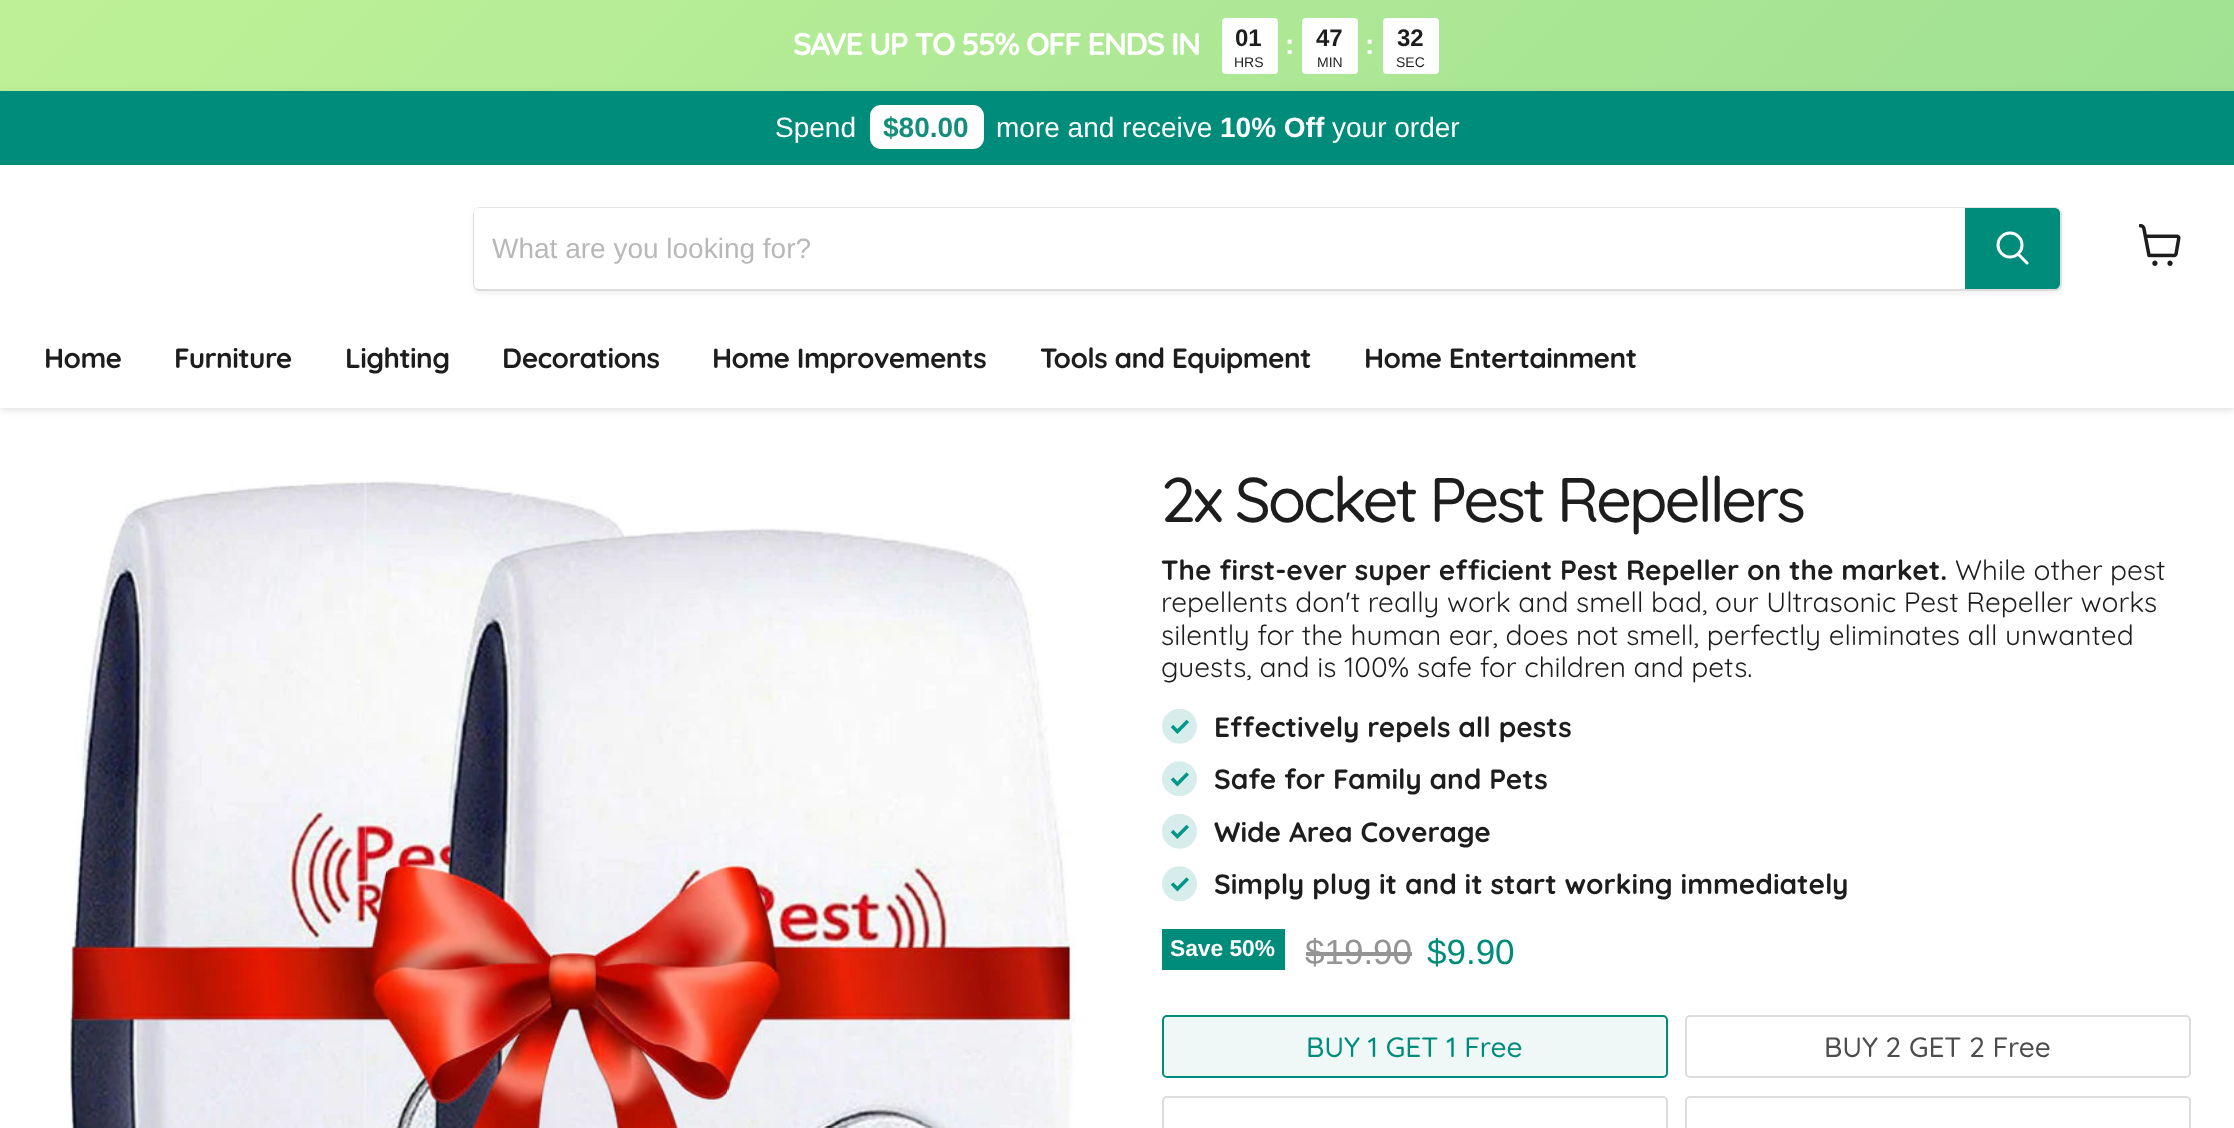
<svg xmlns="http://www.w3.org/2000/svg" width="2234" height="1128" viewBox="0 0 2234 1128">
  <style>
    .t1 { font: bold 31.5px Quicksand; letter-spacing: -1.6px; fill: #fff; }
    .t2 { font: bold 24px Liberation Sans; fill: #1d1d1d; }
    .t3 { font: 14px Liberation Sans; fill: #1d1d1d; }
    .t4 { font: bold 28px Liberation Sans; fill: #fff; }
    .t5 { font: 28px Liberation Sans; fill: #fff; }
    .t6 { font: bold 28px Liberation Sans; fill: #148e7b; }
    .t7 { font: 28px Liberation Sans; fill: #b8b8b8; }
    .t8 { font: bold 28px Quicksand; letter-spacing: -0.6px; fill: #1d1d1d; }
    .t9 { font: 500 63px Quicksand; letter-spacing: -3.15px; fill: #1d1d1d; }
    .t10 { font: bold 28px Quicksand; fill: #1d1d1d; }
    .t11 { font: 28px Quicksand; fill: #1d1d1d; }
    .t12 { font: bold 22.75px Liberation Sans; fill: #fff; }
    .t13 { font: 35px Liberation Sans; fill: #949494; }
    .t14 { font: 35px Liberation Sans; fill: #008c7b; }
    .t15 { font: 500 28px Quicksand; fill: #008c7b; }
    .t16 { font: 500 28px Quicksand; fill: #4d4d4d; }
  </style>
  <defs>
    <linearGradient id="g1" gradientUnits="userSpaceOnUse" x1="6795" y1="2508" x2="2144" y2="-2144"><stop offset="0" stop-color="#4aaf87"/><stop offset="0.5" stop-color="#82d18f"/><stop offset="1" stop-color="#bef197"/></linearGradient>
  </defs>
  <rect width="100%" height="100%" fill="#fff"/>
  <rect x="0" y="0" width="2234" height="91" fill="url(#g1)"/>
  <text x="793" y="55" class="t1">SAVE UP TO 55% OFF ENDS IN</text>
  <rect x="1222" y="18" width="56" height="56" rx="4" fill="#fff"/>
  <text x="1235" y="46" class="t2">01</text>
  <text x="1234" y="67" class="t3">HRS</text>
  <text x="1285" y="54" class="t4">:</text>
  <rect x="1302" y="18" width="56" height="56" rx="4" fill="#fff"/>
  <text x="1316" y="46" class="t2">47</text>
  <text x="1317" y="67" class="t3">MIN</text>
  <text x="1365" y="54" class="t4">:</text>
  <rect x="1383" y="18" width="56" height="56" rx="4" fill="#fff"/>
  <text x="1397" y="46" class="t2">32</text>
  <text x="1396" y="67" class="t3">SEC</text>
  <rect x="0" y="93" width="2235" height="317" fill="#80808040" filter="blur(3.5px)"/>
  <rect x="0" y="165" width="2234" height="243" fill="#fff"/>
  <rect x="0" y="91" width="2234" height="74" fill="#008c7b"/>
  <text x="775" y="137" class="t5">Spend</text>
  <rect x="870" y="105" width="114" height="44" rx="11" fill="#fff"/>
  <text x="883" y="137" class="t6">$80.00</text>
  <text x="996" y="137" class="t5">more and receive</text>
  <text x="1220" y="137" class="t4">10% Off</text>
  <text x="1332" y="137" class="t5">your order</text>
  <rect x="473" y="210" width="1589" height="84" rx="7" fill="#8080801c" filter="blur(2.5px)"/>
  <rect x="474" y="208" width="1587" height="82" rx="6" fill="none" stroke="#80808033" stroke-width="2"/>
  <path d="M479 208H1965V289H479C476 289 474 287 474 284V213C474 210 476 208 479 208Z" fill="#fff"/>
  <text x="492" y="258" class="t7">What are you looking for?</text>
  <path d="M1966 209H2055C2057 209 2059 211 2059 213V284C2059 286 2057 288 2055 288H1966Z" fill="#008c7b" stroke="#008c7b" stroke-width="2"/>
  <path d="M2027 263L2018.5 254.5" fill="none" stroke="#fff" stroke-width="3" stroke-linecap="round"/>
  <circle cx="2010" cy="245" r="12" fill="none" stroke="#fff" stroke-width="3"/>
  <image x="2139" y="224" width="42" height="42" href="images/1.png"/>
  <text x="44" y="368" class="t8">Home</text>
  <text x="174" y="368" class="t8">Furniture</text>
  <text x="345" y="368" class="t8">Lighting</text>
  <text x="502" y="368" class="t8">Decorations</text>
  <text x="712" y="368" class="t8">Home Improvements</text>
  <text x="1040" y="368" class="t8">Tools and Equipment</text>
  <text x="1364" y="368" class="t8">Home Entertainment</text>
  <image x="68" y="481" width="1008" height="647" href="images/2.png"/>
  <text x="1161" y="522" class="t9">2x Socket Pest Repellers</text>
  <text x="1161" y="580" class="t10">The first-ever super efficient Pest Repeller on the market.</text>
  <text x="1955" y="580" class="t11">While other pest</text>
  <text x="1161" y="612" class="t11">repellents don't really work and smell bad, our Ultrasonic Pest Repeller works</text>
  <text x="1161" y="645" class="t11">silently for the human ear, does not smell, perfectly eliminates all unwanted</text>
  <text x="1161" y="677" class="t11">guests, and is 100% safe for children and pets.</text>
  <image x="1162" y="709" width="35" height="35" href="images/3.png"/>
  <text x="1214" y="737" class="t10">Effectively repels all pests</text>
  <image x="1162" y="761" width="35" height="35" href="images/4.png"/>
  <text x="1214" y="789" class="t10">Safe for Family and Pets</text>
  <image x="1162" y="814" width="35" height="35" href="images/3.png"/>
  <text x="1214" y="842" class="t10">Wide Area Coverage</text>
  <image x="1162" y="866" width="35" height="35" href="images/4.png"/>
  <text x="1214" y="894" class="t10">Simply plug it and it start working immediately</text>
  <rect x="1162" y="929" width="123" height="41" fill="#008c7b"/>
  <text x="1170" y="956" class="t12">Save 50%</text>
  <text x="1305" y="964" class="t13">$19.90</text>
  <rect x="1306" y="952" width="106" height="4" fill="#949494"/>
  <text x="1427" y="964" class="t14">$9.90</text>
  <rect x="1163" y="1016" width="504" height="61" rx="4" fill="#f0f8f7" stroke="#008c7b" stroke-width="2"/>
  <text x="1306" y="1057" class="t15">BUY 1 GET 1 Free</text>
  <rect x="1686" y="1016" width="504" height="61" rx="4" fill="none" stroke="#ddd" stroke-width="2"/>
  <text x="1824" y="1057" class="t16">BUY 2 GET 2 Free</text>
  <rect x="1163" y="1097" width="504" height="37" rx="4" fill="none" stroke="#ddd" stroke-width="2"/>
  <rect x="1686" y="1097" width="504" height="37" rx="4" fill="none" stroke="#ddd" stroke-width="2"/>
</svg>
